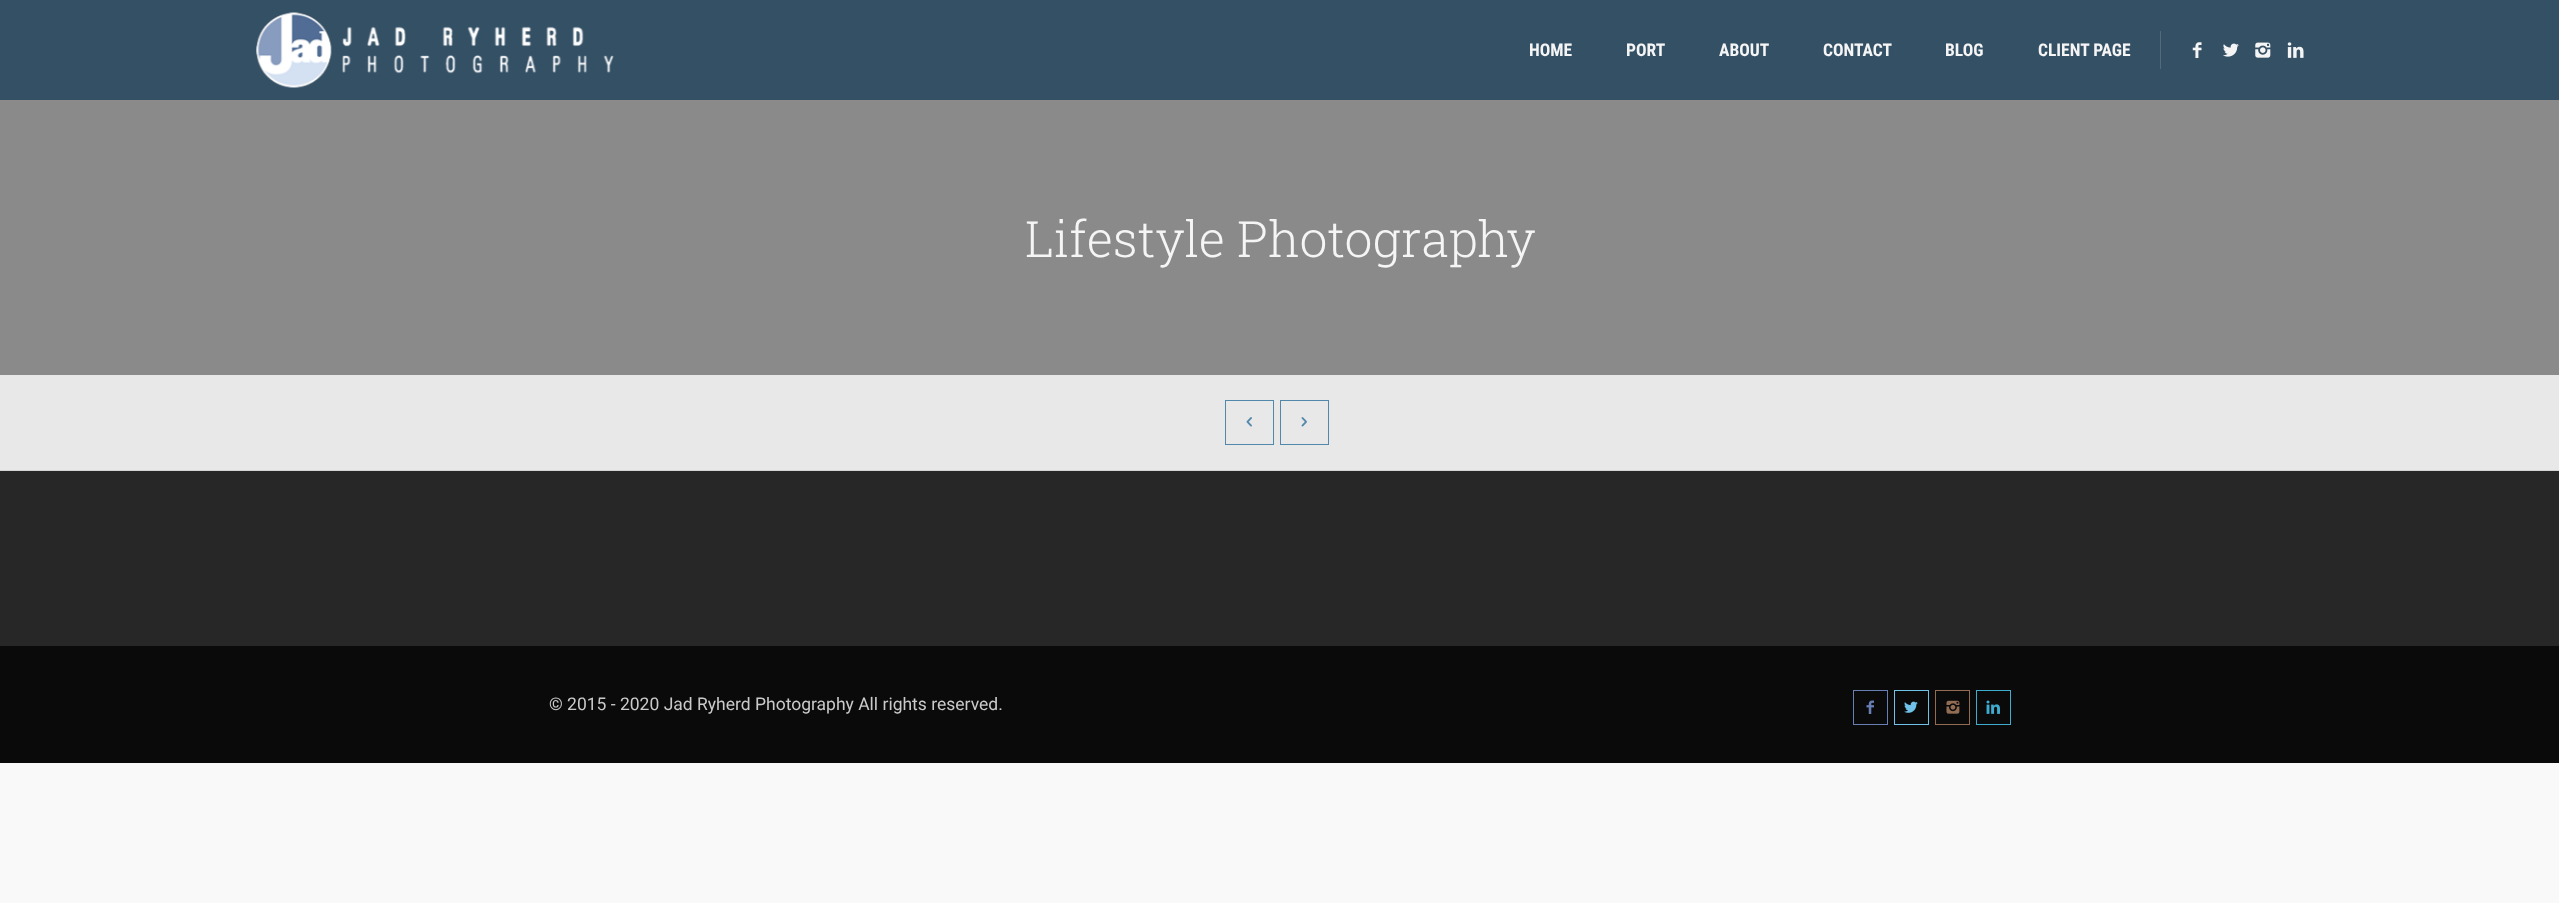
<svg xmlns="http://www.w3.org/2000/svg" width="2559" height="903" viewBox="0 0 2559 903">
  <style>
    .t1 { font: bold 17.5px Roboto Condensed; fill: #f5f5f5; }
    .t2 { font: 300 50px Roboto Slab; fill: #f5f5f5; }
    .t3 { font: 17.5px Roboto; fill: #cacaca; }
  </style>
  <rect width="100%" height="100%" fill="#f9f9f9"/>
  <rect x="0" y="0" width="2559" height="100" fill="#345065"/>
  <image x="256" y="12" width="358" height="76" href="images/1.png"/>
  <text x="1529" y="56" class="t1">HOME</text>
  <text x="1626" y="56" class="t1">PORT</text>
  <text x="1719" y="56" class="t1">ABOUT</text>
  <text x="1823" y="56" class="t1">CONTACT</text>
  <text x="1945" y="56" class="t1">BLOG</text>
  <text x="2038" y="56" class="t1">CLIENT PAGE</text>
  <rect x="2160" y="31" width="1" height="38" fill="#526a7c"/>
  <image x="2192" y="42" width="10" height="16" href="images/2.png"/>
  <image x="2223" y="43" width="16" height="14" href="images/3.png"/>
  <image x="2255" y="42" width="16" height="16" href="images/4.png"/>
  <image x="2287" y="42" width="17" height="16" href="images/5.png"/>
  <rect x="0" y="100" width="2559" height="275" fill="#8a8a8a"/>
  <text x="1025" y="257" class="t2">Lifestyle Photography</text>
  <rect x="0" y="375" width="2559" height="95" fill="#e8e8e8"/>
  <rect x="0" y="470" width="2559" height="1" fill="#d3d3d3"/>
  <rect x="1225.5" y="400.5" width="48" height="44" fill="none" stroke="#5289ab"/>
  <image x="1246" y="417" width="6" height="10" href="images/6.png"/>
  <rect x="1280.5" y="400.5" width="48" height="44" fill="none" stroke="#5289ab"/>
  <image x="1301" y="417" width="6" height="10" href="images/7.png"/>
  <rect x="0" y="471" width="2559" height="175" fill="#272727"/>
  <rect x="0" y="646" width="2559" height="117" fill="#0a0a0a"/>
  <text x="549" y="710" class="t3">© 2015 - 2020 Jad Ryherd Photography All rights reserved.</text>
  <rect x="1853.5" y="690.5" width="34" height="34" fill="none" stroke="#677fb5"/>
  <image x="1866" y="700" width="8" height="14" href="images/8.png"/>
  <rect x="1894.5" y="690.5" width="34" height="34" fill="none" stroke="#70c2e9"/>
  <image x="1904" y="701" width="14" height="12" href="images/9.png"/>
  <rect x="1935.5" y="690.5" width="34" height="34" fill="none" stroke="#926d53"/>
  <image x="1946" y="700" width="14" height="14" href="images/10.png"/>
  <rect x="1976.5" y="690.5" width="34" height="34" fill="none" stroke="#3daccf"/>
  <image x="1986" y="700" width="14" height="14" href="images/11.png"/>
</svg>
